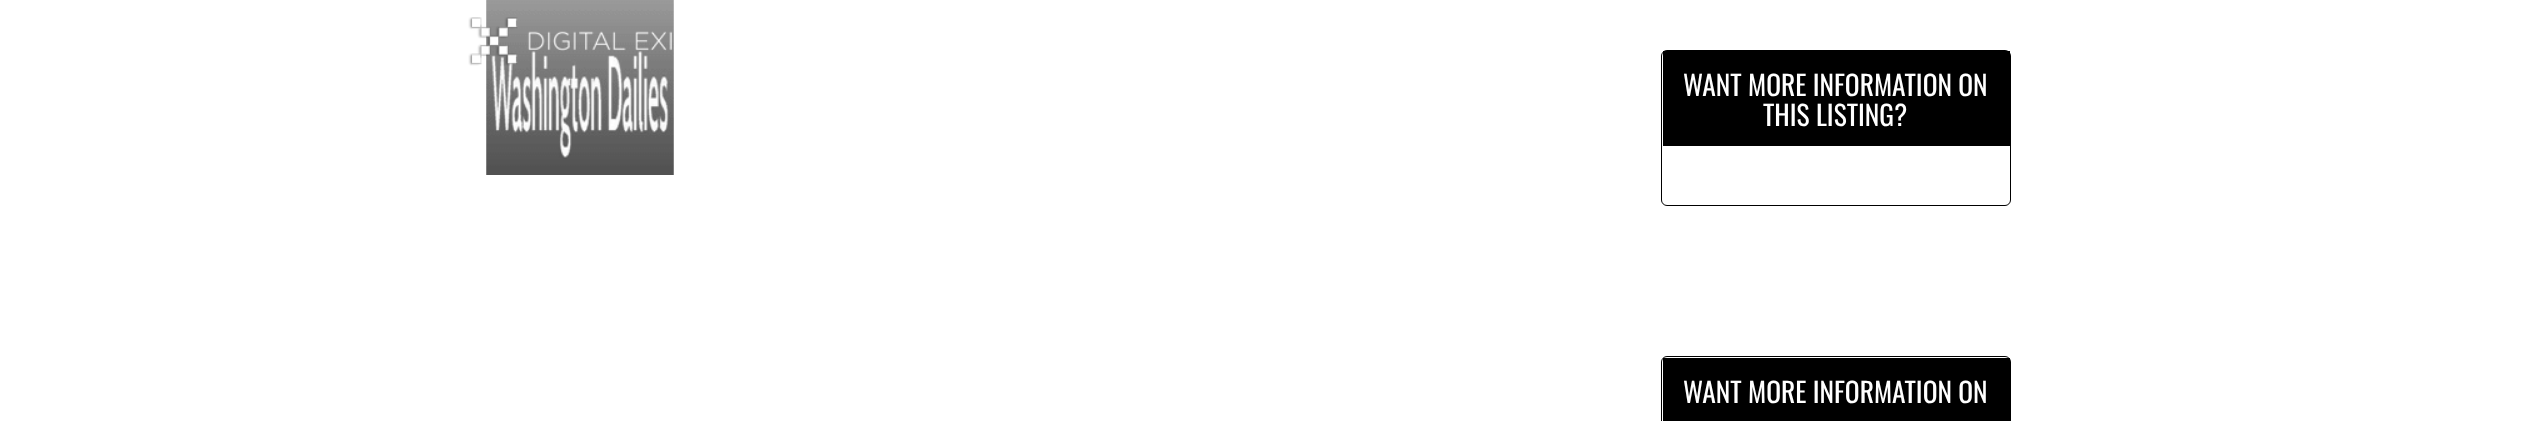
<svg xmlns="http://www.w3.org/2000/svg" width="2521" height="421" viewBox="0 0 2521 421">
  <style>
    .t1 { font: 27.5px Oswald; fill: #fff; }
  </style>
  <rect width="100%" height="100%" fill="#fff"/>
  <image x="486" y="0" width="188" height="175" href="images/2.png"/>
  <image x="468" y="17" width="205" height="49" href="images/1.png"/>
  <rect x="1661.5" y="50.5" width="349" height="155" rx="5.5" fill="none" stroke="#000"/>
  <rect x="1663" y="51" width="347" height="95" fill="#000"/>
  <text x="1683" y="96" class="t1">WANT MORE INFORMATION ON</text>
  <text x="1763" y="126" class="t1">THIS LISTING?</text>
  <rect x="1661.5" y="356.5" width="349" height="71" rx="5.5" fill="none" stroke="#000"/>
  <rect x="1663" y="358" width="347" height="63" fill="#000"/>
  <text x="1683" y="403" class="t1">WANT MORE INFORMATION ON</text>
</svg>
